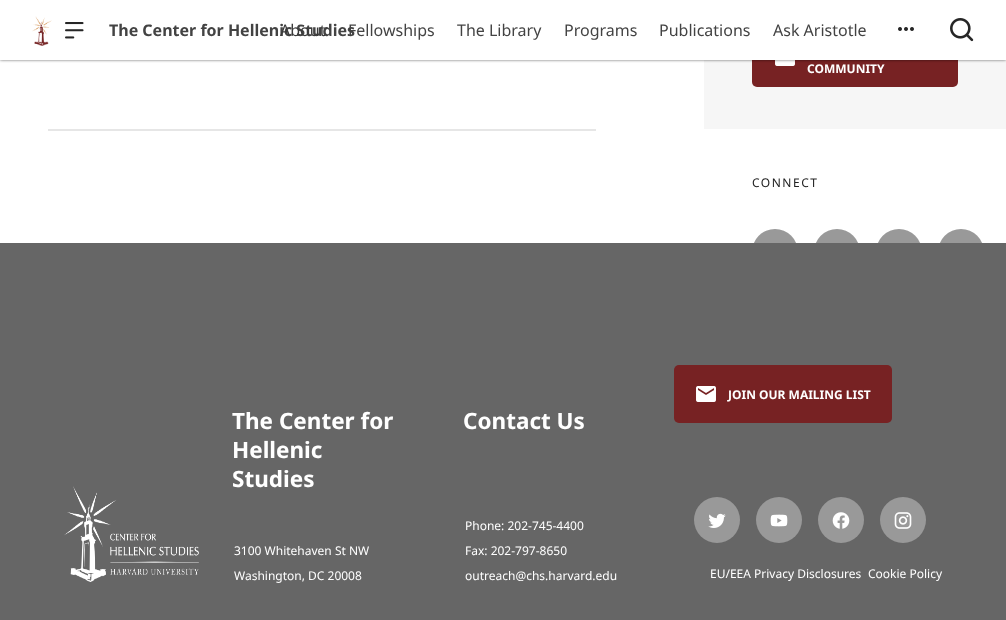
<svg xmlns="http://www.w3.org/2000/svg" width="1006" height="620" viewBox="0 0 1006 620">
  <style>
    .t1 { font: bold 16px Noto Sans; fill: #434343; }
    .t2 { font: 16px Noto Sans; fill: #3a3a3a; }
    .t3 { font: 16px Noto Sans; fill: #434343; }
    .t4 { font: bold 12px Noto Sans; fill: #fff; }
    .t5 { font: 12px Noto Sans; letter-spacing: 1.5px; fill: #222; }
    .t6 { font: bold 22.5px Noto Sans; fill: #fff; }
    .t7 { font: 12px Noto Sans; fill: #fff; }
  </style>
  <rect width="100%" height="100%" fill="#fff"/>
  <rect x="704" y="60" width="302" height="69" fill="#f6f6f6"/>
  <rect x="752" y="28" width="206" height="59" rx="5" fill="#772223"/>
  <image x="775" y="60" width="20" height="6" href="images/5.png"/>
  <rect x="0" y="0" width="1006" height="60" fill="#00000099" filter="blur(1.5px)"/>
  <rect x="0" y="0" width="1006" height="60" fill="#fff"/>
  <image x="32" y="16" width="20" height="30" href="images/1.png"/>
  <image x="65" y="22" width="19" height="17" href="images/2.png"/>
  <text x="109" y="36" class="t1">The Center for Hellenic Studies</text>
  <text x="280" y="36" class="t2">About</text>
  <text x="348" y="36" class="t3">Fellowships</text>
  <text x="457" y="36" class="t3">The Library</text>
  <text x="564" y="36" class="t3">Programs</text>
  <text x="659" y="36" class="t3">Publications</text>
  <text x="773" y="36" class="t3">Ask Aristotle</text>
  <image x="898" y="27" width="16" height="4" href="images/3.png"/>
  <image x="950" y="18" width="24" height="24" href="images/4.png"/>
  <rect x="48" y="129" width="548" height="2" fill="#e6e6e6"/>
  <text x="807" y="73" class="t4">COMMUNITY</text>
  <text x="752" y="187" class="t5">CONNECT</text>
  <circle cx="775" cy="252" r="23" fill="#999"/>
  <circle cx="837" cy="252" r="23" fill="#999"/>
  <circle cx="899" cy="252" r="23" fill="#999"/>
  <circle cx="961" cy="252" r="23" fill="#999"/>
  <rect x="0" y="243" width="1006" height="377" fill="#666"/>
  <image x="64" y="486" width="135" height="96" href="images/6.png"/>
  <text x="232" y="429" class="t6">The Center for</text>
  <text x="232" y="458" class="t6">Hellenic</text>
  <text x="232" y="487" class="t6">Studies</text>
  <text x="463" y="429" class="t6">Contact Us</text>
  <text x="465" y="530" class="t7">Phone: 202-745-4400</text>
  <text x="234" y="555" class="t7">3100 Whitehaven St NW</text>
  <text x="465" y="555" class="t7">Fax: 202-797-8650</text>
  <text x="234" y="580" class="t7">Washington, DC 20008</text>
  <text x="465" y="580" class="t7">outreach@chs.harvard.edu</text>
  <rect x="674" y="365" width="218" height="58" rx="5" fill="#772223"/>
  <image x="696" y="386" width="20" height="16" href="images/7.png"/>
  <text x="728" y="399" class="t4">JOIN OUR MAILING LIST</text>
  <circle cx="717" cy="520" r="23" fill="#999"/>
  <image x="708" y="513" width="18" height="15" href="images/8.png"/>
  <circle cx="779" cy="520" r="23" fill="#999"/>
  <image x="770" y="514" width="18" height="13" href="images/9.png"/>
  <circle cx="841" cy="520" r="23" fill="#999"/>
  <image x="832" y="512" width="18" height="17" href="images/10.png"/>
  <circle cx="903" cy="520" r="23" fill="#999"/>
  <image x="894" y="512" width="18" height="17" href="images/11.png"/>
  <text x="710" y="578" class="t7">EU/EEA Privacy Disclosures</text>
  <text x="868" y="578" class="t7">Cookie Policy</text>
</svg>
